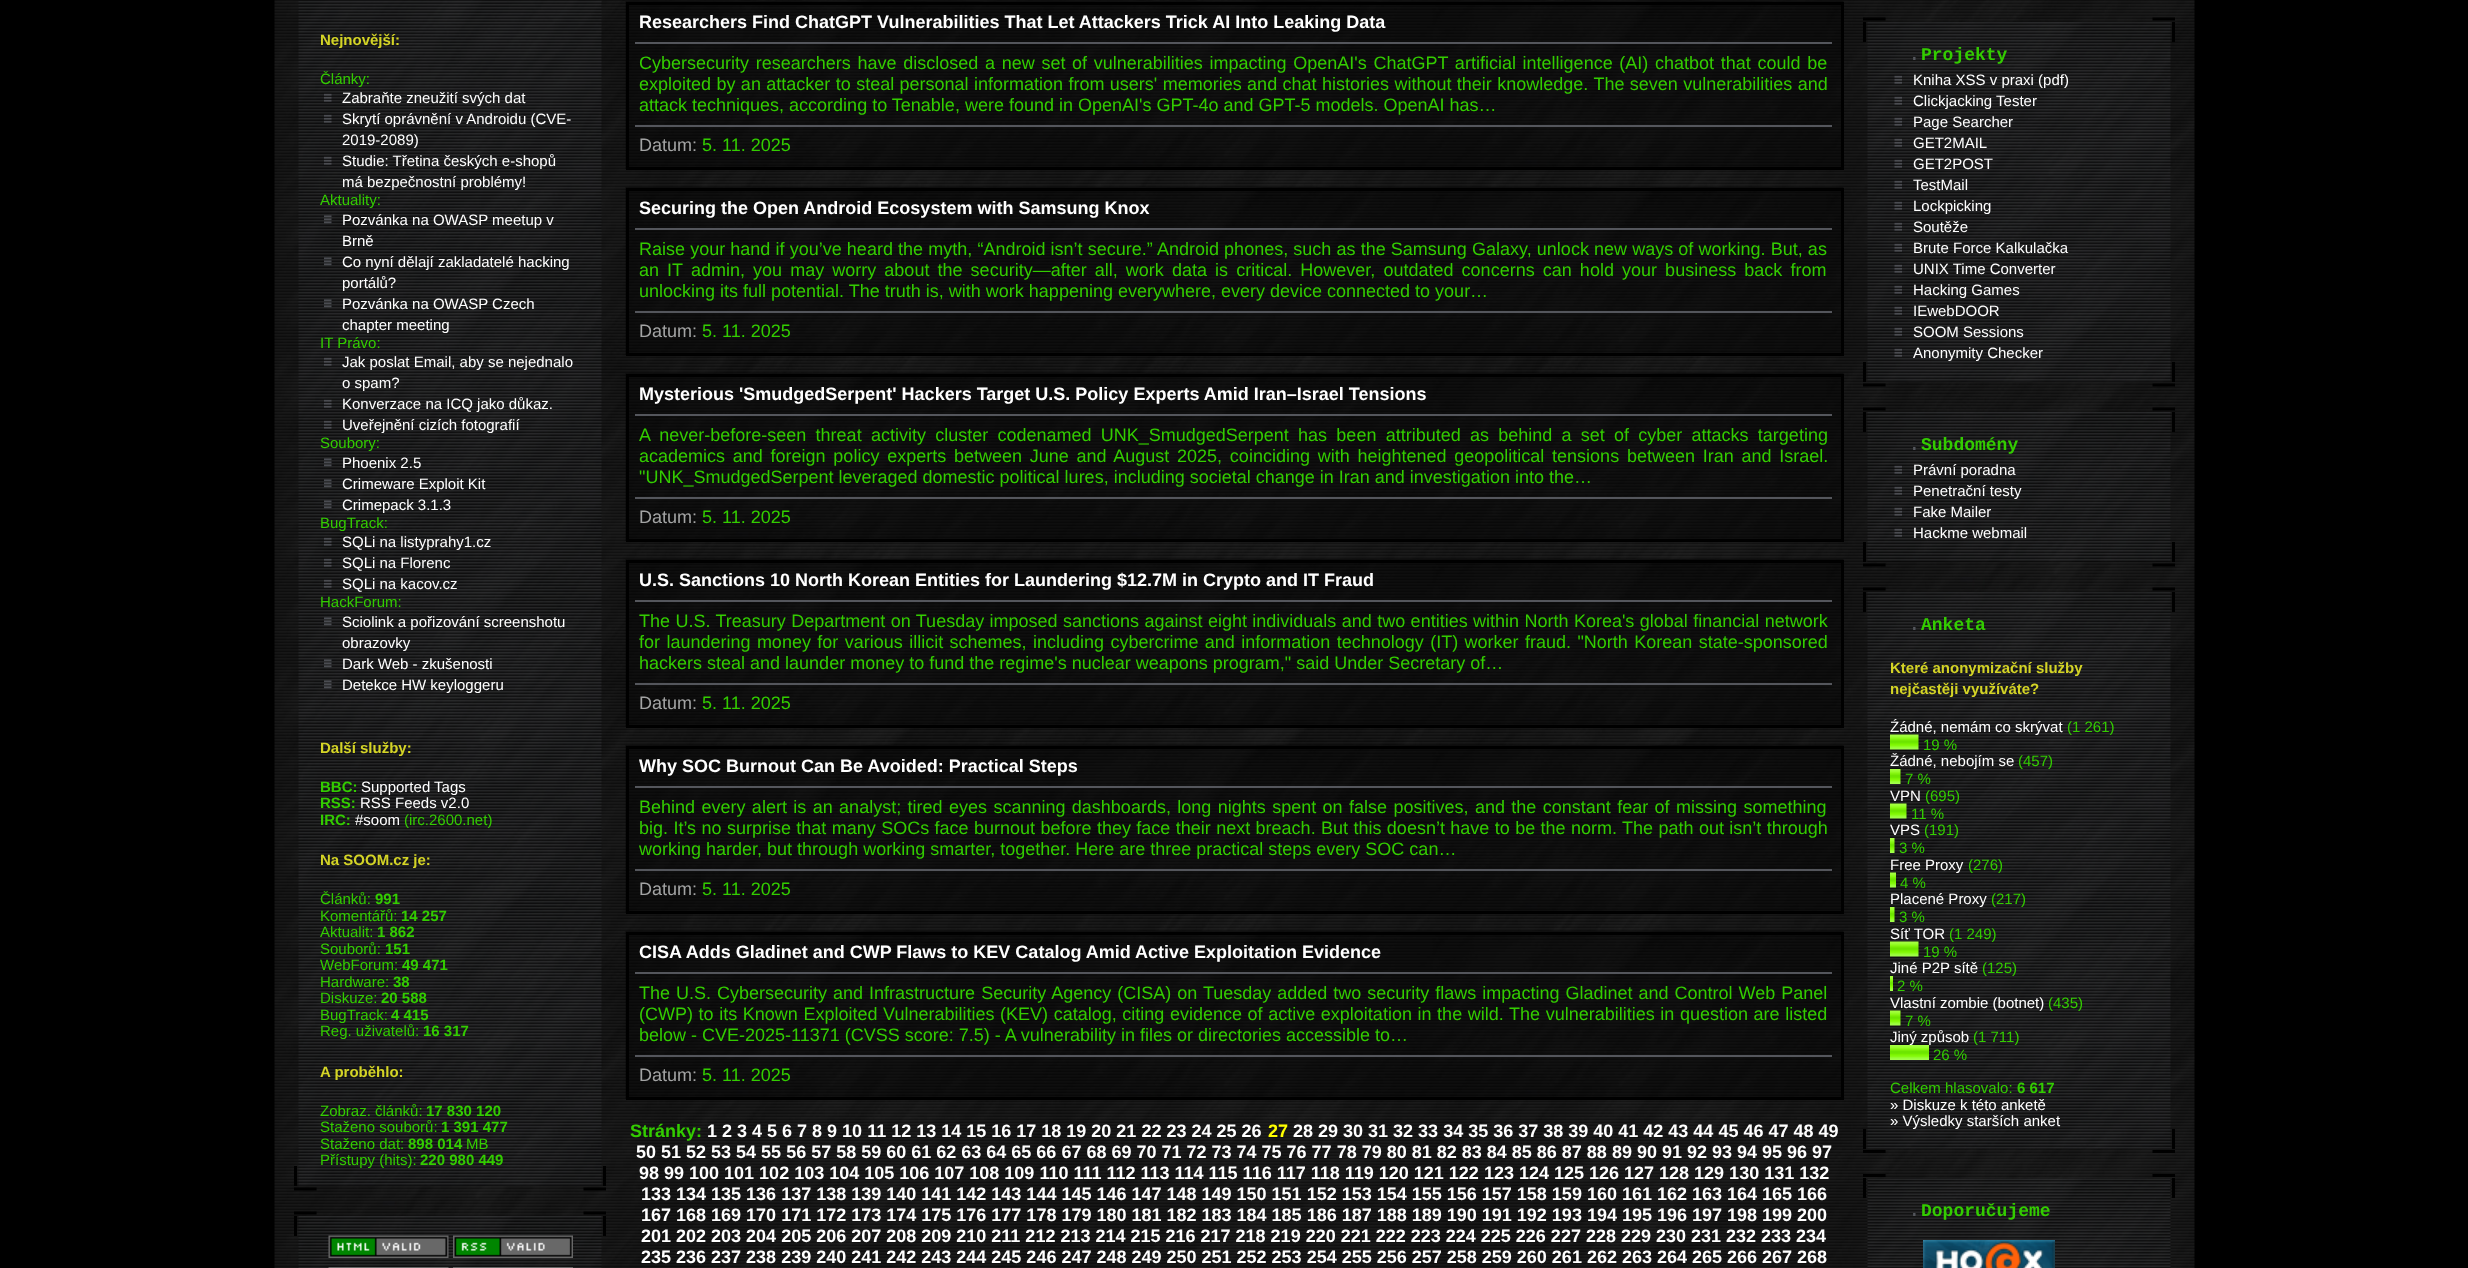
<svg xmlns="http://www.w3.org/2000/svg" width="2468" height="1268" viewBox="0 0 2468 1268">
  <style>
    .t1 { font: bold 15px Liberation Sans; fill: #d4d426; }
    .t2 { font: 15px Liberation Sans; fill: #3c0; }
    .t3 { font: 15px Liberation Sans; fill: #fff; }
    .t4 { font: bold 15px Liberation Sans; fill: #3c0; }
    .t5 { font: bold 18px Liberation Sans; fill: #fff; }
    .t6 { font: 18px Liberation Sans; fill: #3c0; }
    .t7 { font: 18px Liberation Sans; fill: #a3a4a4; }
    .t8 { font: bold 18px Liberation Sans; fill: #3c0; }
    .t9 { font: bold 18px Liberation Sans; fill: #ff0; }
    .t10 { font: 21px Liberation Mono; fill: #54565c; }
    .t11 { font: bold 18px Liberation Mono; fill: #3c0; }
  </style>
  <rect width="100%" height="100%" fill="#000"/>
  <image x="274" y="0" width="1921" height="1268" href="images/1.png"/>
  <image x="298" y="0" width="304" height="1186" href="images/2.png"/>
  <text x="320" y="45" class="t1">Nejnovější:</text>
  <text x="320" y="84" class="t2">Články:</text>
  <image x="324" y="93" width="8" height="9" href="images/3.png"/>
  <text x="342" y="103" class="t3">Zabraňte zneužití svých dat</text>
  <image x="324" y="114" width="8" height="9" href="images/4.png"/>
  <text x="342" y="124" class="t3">Skrytí oprávnění v Androidu (CVE-</text>
  <text x="342" y="145" class="t3">2019-2089)</text>
  <image x="324" y="156" width="8" height="9" href="images/5.png"/>
  <text x="342" y="166" class="t3">Studie: Třetina českých e-shopů</text>
  <text x="342" y="187" class="t3">má bezpečnostní problémy!</text>
  <text x="320" y="205" class="t2">Aktuality:</text>
  <image x="324" y="215" width="8" height="9" href="images/6.png"/>
  <text x="342" y="225" class="t3">Pozvánka na OWASP meetup v</text>
  <text x="342" y="246" class="t3">Brně</text>
  <image x="324" y="257" width="8" height="9" href="images/7.png"/>
  <text x="342" y="267" class="t3">Co nyní dělají zakladatelé hacking</text>
  <text x="342" y="288" class="t3">portálů?</text>
  <image x="324" y="299" width="8" height="9" href="images/8.png"/>
  <text x="342" y="309" class="t3">Pozvánka na OWASP Czech</text>
  <text x="342" y="330" class="t3">chapter meeting</text>
  <text x="320" y="348" class="t2">IT Právo:</text>
  <image x="324" y="357" width="8" height="9" href="images/9.png"/>
  <text x="342" y="367" class="t3">Jak poslat Email, aby se nejednalo</text>
  <text x="342" y="388" class="t3">o spam?</text>
  <image x="324" y="399" width="8" height="9" href="images/10.png"/>
  <text x="342" y="409" class="t3">Konverzace na ICQ jako důkaz.</text>
  <image x="324" y="420" width="8" height="9" href="images/11.png"/>
  <text x="342" y="430" class="t3">Uveřejnění cizích fotografií</text>
  <text x="320" y="448" class="t2">Soubory:</text>
  <image x="324" y="458" width="8" height="9" href="images/12.png"/>
  <text x="342" y="468" class="t3">Phoenix 2.5</text>
  <image x="324" y="479" width="8" height="9" href="images/13.png"/>
  <text x="342" y="489" class="t3">Crimeware Exploit Kit</text>
  <image x="324" y="500" width="8" height="9" href="images/14.png"/>
  <text x="342" y="510" class="t3">Crimepack 3.1.3</text>
  <text x="320" y="528" class="t2">BugTrack:</text>
  <image x="324" y="537" width="8" height="9" href="images/15.png"/>
  <text x="342" y="547" class="t3">SQLi na listyprahy1.cz</text>
  <image x="324" y="558" width="8" height="9" href="images/16.png"/>
  <text x="342" y="568" class="t3">SQLi na Florenc</text>
  <image x="324" y="579" width="8" height="9" href="images/17.png"/>
  <text x="342" y="589" class="t3">SQLi na kacov.cz</text>
  <text x="320" y="607" class="t2">HackForum:</text>
  <image x="324" y="617" width="8" height="9" href="images/18.png"/>
  <text x="342" y="627" class="t3">Sciolink a pořizování screenshotu</text>
  <text x="342" y="648" class="t3">obrazovky</text>
  <image x="324" y="659" width="8" height="9" href="images/19.png"/>
  <text x="342" y="669" class="t3">Dark Web - zkušenosti</text>
  <image x="324" y="680" width="8" height="9" href="images/20.png"/>
  <text x="342" y="690" class="t3">Detekce HW keyloggeru</text>
  <text x="320" y="753" class="t1">Další služby:</text>
  <text x="320" y="792" class="t4">BBC:</text>
  <text x="361" y="792" class="t3">Supported Tags</text>
  <text x="320" y="808" class="t4">RSS:</text>
  <text x="360" y="808" class="t3">RSS Feeds v2.0</text>
  <text x="320" y="825" class="t4">IRC:</text>
  <text x="355" y="825" class="t3">#soom</text>
  <text x="404" y="825" class="t2">(irc.2600.net)</text>
  <text x="320" y="865" class="t1">Na SOOM.cz je:</text>
  <text x="320" y="904" class="t2">Článků:</text>
  <text x="375" y="904" class="t4">991</text>
  <text x="320" y="921" class="t2">Komentářů:</text>
  <text x="401" y="921" class="t4">14 257</text>
  <text x="320" y="937" class="t2">Aktualit:</text>
  <text x="377" y="937" class="t4">1 862</text>
  <text x="320" y="954" class="t2">Souborů:</text>
  <text x="385" y="954" class="t4">151</text>
  <text x="320" y="970" class="t2">WebForum:</text>
  <text x="402" y="970" class="t4">49 471</text>
  <text x="320" y="987" class="t2">Hardware:</text>
  <text x="393" y="987" class="t4">38</text>
  <text x="320" y="1003" class="t2">Diskuze:</text>
  <text x="381" y="1003" class="t4">20 588</text>
  <text x="320" y="1020" class="t2">BugTrack:</text>
  <text x="391" y="1020" class="t4">4 415</text>
  <text x="320" y="1036" class="t2">Reg. uživatelů:</text>
  <text x="423" y="1036" class="t4">16 317</text>
  <text x="320" y="1077" class="t1">A proběhlo:</text>
  <text x="320" y="1116" class="t2">Zobraz. článků:</text>
  <text x="426" y="1116" class="t4">17 830 120</text>
  <text x="320" y="1132" class="t2">Staženo souborů:</text>
  <text x="441" y="1132" class="t4">1 391 477</text>
  <text x="320" y="1149" class="t2">Staženo dat:</text>
  <text x="408" y="1149" class="t4">898 014</text>
  <text x="466" y="1149" class="t2">MB</text>
  <text x="320" y="1165" class="t2">Přístupy (hits):</text>
  <text x="420" y="1165" class="t4">220 980 449</text>
  <rect x="294" y="1166" width="3" height="20" fill="#000"/>
  <rect x="603" y="1166" width="3" height="20" fill="#000"/>
  <image x="294" y="1187" width="312" height="4" href="images/21.png"/>
  <image x="294" y="1211" width="312" height="4" href="images/22.png"/>
  <rect x="294" y="1216" width="3" height="20" fill="#000"/>
  <image x="298" y="1216" width="304" height="52" href="images/23.png"/>
  <image x="328" y="1235" width="121" height="23" href="images/24.png"/>
  <image x="328" y="1267" width="121" height="1" href="images/25.png"/>
  <image x="453" y="1235" width="120" height="23" href="images/26.png"/>
  <rect x="453" y="1267" width="120" height="1" fill="#686868"/>
  <rect x="603" y="1216" width="3" height="20" fill="#000"/>
  <image x="625" y="1" width="1219" height="168" href="images/27.png"/>
  <rect x="627.5" y="3.5" width="1215" height="165" fill="none" stroke="#000" stroke-width="3"/>
  <text x="639" y="28" class="t5">Researchers Find ChatGPT Vulnerabilities That Let Attackers Trick AI Into Leaking Data</text>
  <rect x="635" y="42" width="1197" height="2" fill="#54565c"/>
  <text x="639" y="69" word-spacing="1.7" class="t6">Cybersecurity researchers have disclosed a new set of vulnerabilities impacting OpenAI's ChatGPT artificial intelligence (AI) chatbot that could be</text>
  <text x="639" y="90" word-spacing="0.4" class="t6">exploited by an attacker to steal personal information from users' memories and chat histories without their knowledge. The seven vulnerabilities and</text>
  <text x="639" y="111" class="t6">attack techniques, according to Tenable, were found in OpenAI's GPT-4o and GPT-5 models. OpenAI has…</text>
  <rect x="635" y="125" width="1197" height="2" fill="#54565c"/>
  <text x="639" y="151" class="t7">Datum:</text>
  <text x="702" y="151" class="t6">5. 11. 2025</text>
  <image x="625" y="187" width="1219" height="168" href="images/28.png"/>
  <rect x="627.5" y="189.5" width="1215" height="165" fill="none" stroke="#000" stroke-width="3"/>
  <text x="639" y="214" class="t5">Securing the Open Android Ecosystem with Samsung Knox</text>
  <rect x="635" y="228" width="1197" height="2" fill="#54565c"/>
  <text x="639" y="255" word-spacing="0.15" class="t6">Raise your hand if you’ve heard the myth, “Android isn’t secure.” Android phones, such as the Samsung Galaxy, unlock new ways of working. But, as</text>
  <text x="639" y="276" word-spacing="3.1" class="t6">an IT admin, you may worry about the security—after all, work data is critical. However, outdated concerns can hold your business back from</text>
  <text x="639" y="297" class="t6">unlocking its full potential. The truth is, with work happening everywhere, every device connected to your…</text>
  <rect x="635" y="311" width="1197" height="2" fill="#54565c"/>
  <text x="639" y="337" class="t7">Datum:</text>
  <text x="702" y="337" class="t6">5. 11. 2025</text>
  <image x="625" y="373" width="1219" height="168" href="images/29.png"/>
  <rect x="627.5" y="375.5" width="1215" height="165" fill="none" stroke="#000" stroke-width="3"/>
  <text x="639" y="400" class="t5">Mysterious 'SmudgedSerpent' Hackers Target U.S. Policy Experts Amid Iran–Israel Tensions</text>
  <rect x="635" y="414" width="1197" height="2" fill="#54565c"/>
  <text x="639" y="441" word-spacing="4.25" class="t6">A never-before-seen threat activity cluster codenamed UNK_SmudgedSerpent has been attributed as behind a set of cyber attacks targeting</text>
  <text x="639" y="462" word-spacing="2.75" class="t6">academics and foreign policy experts between June and August 2025, coinciding with heightened geopolitical tensions between Iran and Israel.</text>
  <text x="639" y="483" class="t6">"UNK_SmudgedSerpent leveraged domestic political lures, including societal change in Iran and investigation into the…</text>
  <rect x="635" y="497" width="1197" height="2" fill="#54565c"/>
  <text x="639" y="523" class="t7">Datum:</text>
  <text x="702" y="523" class="t6">5. 11. 2025</text>
  <image x="625" y="559" width="1219" height="168" href="images/30.png"/>
  <rect x="627.5" y="561.5" width="1215" height="165" fill="none" stroke="#000" stroke-width="3"/>
  <text x="639" y="586" class="t5">U.S. Sanctions 10 North Korean Entities for Laundering $12.7M in Crypto and IT Fraud</text>
  <rect x="635" y="600" width="1197" height="2" fill="#54565c"/>
  <text x="639" y="627" word-spacing="0.4" class="t6">The U.S. Treasury Department on Tuesday imposed sanctions against eight individuals and two entities within North Korea's global financial network</text>
  <text x="639" y="648" word-spacing="1.4" class="t6">for laundering money for various illicit schemes, including cybercrime and information technology (IT) worker fraud. "North Korean state-sponsored</text>
  <text x="639" y="669" class="t6">hackers steal and launder money to fund the regime's nuclear weapons program," said Under Secretary of…</text>
  <rect x="635" y="683" width="1197" height="2" fill="#54565c"/>
  <text x="639" y="709" class="t7">Datum:</text>
  <text x="702" y="709" class="t6">5. 11. 2025</text>
  <image x="625" y="745" width="1219" height="168" href="images/31.png"/>
  <rect x="627.5" y="747.5" width="1215" height="165" fill="none" stroke="#000" stroke-width="3"/>
  <text x="639" y="772" class="t5">Why SOC Burnout Can Be Avoided: Practical Steps</text>
  <rect x="635" y="786" width="1197" height="2" fill="#54565c"/>
  <text x="639" y="813" word-spacing="1.4" class="t6">Behind every alert is an analyst; tired eyes scanning dashboards, long nights spent on false positives, and the constant fear of missing something</text>
  <text x="639" y="834" word-spacing="0.4" class="t6">big. It’s no surprise that many SOCs face burnout before they face their next breach. But this doesn’t have to be the norm. The path out isn’t through</text>
  <text x="639" y="855" class="t6">working harder, but through working smarter, together. Here are three practical steps every SOC can…</text>
  <rect x="635" y="869" width="1197" height="2" fill="#54565c"/>
  <text x="639" y="895" class="t7">Datum:</text>
  <text x="702" y="895" class="t6">5. 11. 2025</text>
  <image x="625" y="931" width="1219" height="168" href="images/32.png"/>
  <rect x="627.5" y="933.5" width="1215" height="165" fill="none" stroke="#000" stroke-width="3"/>
  <text x="639" y="958" class="t5">CISA Adds Gladinet and CWP Flaws to KEV Catalog Amid Active Exploitation Evidence</text>
  <rect x="635" y="972" width="1197" height="2" fill="#54565c"/>
  <text x="639" y="999" word-spacing="1" class="t6">The U.S. Cybersecurity and Infrastructure Security Agency (CISA) on Tuesday added two security flaws impacting Gladinet and Control Web Panel</text>
  <text x="639" y="1020" word-spacing="0.6" class="t6">(CWP) to its Known Exploited Vulnerabilities (KEV) catalog, citing evidence of active exploitation in the wild. The vulnerabilities in question are listed</text>
  <text x="639" y="1041" class="t6">below - CVE-2025-11371 (CVSS score: 7.5) - A vulnerability in files or directories accessible to…</text>
  <rect x="635" y="1055" width="1197" height="2" fill="#54565c"/>
  <text x="639" y="1081" class="t7">Datum:</text>
  <text x="702" y="1081" class="t6">5. 11. 2025</text>
  <text x="630" y="1137" class="t8">Stránky:</text>
  <text x="707" y="1137" class="t5">1 2 3 4 5 6 7 8 9 10 11 12 13 14 15 16 17 18 19 20 21 22 23 24 25 26</text>
  <text x="1268" y="1137" class="t9">27</text>
  <text x="1293" y="1137" class="t5">28 29 30 31 32 33 34 35 36 37 38 39 40 41 42 43 44 45 46 47 48 49</text>
  <text x="636" y="1158" class="t5">50 51 52 53 54 55 56 57 58 59 60 61 62 63 64 65 66 67 68 69 70 71 72 73 74 75 76 77 78 79 80 81 82 83 84 85 86 87 88 89 90 91 92 93 94 95 96 97</text>
  <text x="639" y="1179" class="t5">98 99 100 101 102 103 104 105 106 107 108 109 110 111 112 113 114 115 116 117 118 119 120 121 122 123 124 125 126 127 128 129 130 131 132</text>
  <text x="641" y="1200" class="t5">133 134 135 136 137 138 139 140 141 142 143 144 145 146 147 148 149 150 151 152 153 154 155 156 157 158 159 160 161 162 163 164 165 166</text>
  <text x="641" y="1221" class="t5">167 168 169 170 171 172 173 174 175 176 177 178 179 180 181 182 183 184 185 186 187 188 189 190 191 192 193 194 195 196 197 198 199 200</text>
  <text x="641" y="1242" class="t5">201 202 203 204 205 206 207 208 209 210 211 212 213 214 215 216 217 218 219 220 221 222 223 224 225 226 227 228 229 230 231 232 233 234</text>
  <text x="641" y="1263" class="t5">235 236 237 238 239 240 241 242 243 244 245 246 247 248 249 250 251 252 253 254 255 256 257 258 259 260 261 262 263 264 265 266 267 268</text>
  <image x="1863" y="17" width="312" height="4" href="images/33.png"/>
  <rect x="1863" y="22" width="3" height="20" fill="#000"/>
  <rect x="2172" y="22" width="3" height="20" fill="#000"/>
  <image x="1867" y="22" width="304" height="360" href="images/34.png"/>
  <text x="1908" y="60" class="t10">.</text>
  <text x="1921" y="60" class="t11">Projekty</text>
  <image x="1894" y="75" width="8" height="9" href="images/35.png"/>
  <text x="1913" y="85" class="t3">Kniha XSS v praxi (pdf)</text>
  <image x="1894" y="96" width="8" height="9" href="images/36.png"/>
  <text x="1913" y="106" class="t3">Clickjacking Tester</text>
  <image x="1894" y="117" width="8" height="9" href="images/37.png"/>
  <text x="1913" y="127" class="t3">Page Searcher</text>
  <image x="1894" y="138" width="8" height="9" href="images/38.png"/>
  <text x="1913" y="148" class="t3">GET2MAIL</text>
  <image x="1894" y="159" width="8" height="9" href="images/39.png"/>
  <text x="1913" y="169" class="t3">GET2POST</text>
  <image x="1894" y="180" width="8" height="9" href="images/40.png"/>
  <text x="1913" y="190" class="t3">TestMail</text>
  <image x="1894" y="201" width="8" height="9" href="images/41.png"/>
  <text x="1913" y="211" class="t3">Lockpicking</text>
  <image x="1894" y="222" width="8" height="9" href="images/42.png"/>
  <text x="1913" y="232" class="t3">Soutěže</text>
  <image x="1894" y="243" width="8" height="9" href="images/43.png"/>
  <text x="1913" y="253" class="t3">Brute Force Kalkulačka</text>
  <image x="1894" y="264" width="8" height="9" href="images/44.png"/>
  <text x="1913" y="274" class="t3">UNIX Time Converter</text>
  <image x="1894" y="285" width="8" height="9" href="images/45.png"/>
  <text x="1913" y="295" class="t3">Hacking Games</text>
  <image x="1894" y="306" width="8" height="9" href="images/46.png"/>
  <text x="1913" y="316" class="t3">IEwebDOOR</text>
  <image x="1894" y="327" width="8" height="9" href="images/47.png"/>
  <text x="1913" y="337" class="t3">SOOM Sessions</text>
  <image x="1894" y="348" width="8" height="9" href="images/48.png"/>
  <text x="1913" y="358" class="t3">Anonymity Checker</text>
  <rect x="1863" y="362" width="3" height="20" fill="#000"/>
  <rect x="2172" y="362" width="3" height="20" fill="#000"/>
  <image x="1863" y="383" width="312" height="4" href="images/49.png"/>
  <image x="1863" y="407" width="312" height="4" href="images/50.png"/>
  <rect x="1863" y="412" width="3" height="20" fill="#000"/>
  <rect x="2172" y="412" width="3" height="20" fill="#000"/>
  <image x="1867" y="412" width="304" height="150" href="images/51.png"/>
  <text x="1908" y="450" class="t10">.</text>
  <text x="1921" y="450" class="t11">Subdomény</text>
  <image x="1894" y="465" width="8" height="9" href="images/52.png"/>
  <text x="1913" y="475" class="t3">Právní poradna</text>
  <image x="1894" y="486" width="8" height="9" href="images/53.png"/>
  <text x="1913" y="496" class="t3">Penetrační testy</text>
  <image x="1894" y="507" width="8" height="9" href="images/54.png"/>
  <text x="1913" y="517" class="t3">Fake Mailer</text>
  <image x="1894" y="528" width="8" height="9" href="images/55.png"/>
  <text x="1913" y="538" class="t3">Hackme webmail</text>
  <rect x="1863" y="542" width="3" height="20" fill="#000"/>
  <rect x="2172" y="542" width="3" height="20" fill="#000"/>
  <image x="1863" y="563" width="312" height="4" href="images/56.png"/>
  <image x="1863" y="587" width="312" height="4" href="images/57.png"/>
  <rect x="1863" y="592" width="3" height="20" fill="#000"/>
  <rect x="2172" y="592" width="3" height="20" fill="#000"/>
  <image x="1867" y="592" width="304" height="557" href="images/58.png"/>
  <text x="1908" y="630" class="t10">.</text>
  <text x="1921" y="630" class="t11">Anketa</text>
  <text x="1890" y="673" class="t1">Které anonymizační služby</text>
  <text x="1890" y="694" class="t1">nejčastěji využíváte?</text>
  <text x="1890" y="732" class="t3">Źádné, nemám co skrývat</text>
  <text x="2067" y="732" class="t2">(1 261)</text>
  <image x="1890" y="734" width="29" height="16" href="images/59.png"/>
  <text x="1923" y="750" class="t2">19 %</text>
  <text x="1890" y="766" class="t3">Žádné, nebojím se</text>
  <text x="2018" y="766" class="t2">(457)</text>
  <image x="1890" y="769" width="11" height="15" href="images/60.png"/>
  <text x="1905" y="784" class="t2">7 %</text>
  <text x="1890" y="801" class="t3">VPN</text>
  <text x="1925" y="801" class="t2">(695)</text>
  <image x="1890" y="803" width="17" height="16" href="images/61.png"/>
  <text x="1911" y="819" class="t2">11 %</text>
  <text x="1890" y="835" class="t3">VPS</text>
  <text x="1924" y="835" class="t2">(191)</text>
  <image x="1890" y="838" width="5" height="15" href="images/62.png"/>
  <text x="1899" y="853" class="t2">3 %</text>
  <text x="1890" y="870" class="t3">Free Proxy</text>
  <text x="1968" y="870" class="t2">(276)</text>
  <image x="1890" y="872" width="6" height="16" href="images/63.png"/>
  <text x="1900" y="888" class="t2">4 %</text>
  <text x="1890" y="904" class="t3">Placené Proxy</text>
  <text x="1991" y="904" class="t2">(217)</text>
  <image x="1890" y="907" width="5" height="15" href="images/64.png"/>
  <text x="1899" y="922" class="t2">3 %</text>
  <text x="1890" y="939" class="t3">Síť TOR</text>
  <text x="1949" y="939" class="t2">(1 249)</text>
  <image x="1890" y="941" width="29" height="16" href="images/65.png"/>
  <text x="1923" y="957" class="t2">19 %</text>
  <text x="1890" y="973" class="t3">Jiné P2P sítě</text>
  <text x="1982" y="973" class="t2">(125)</text>
  <image x="1890" y="976" width="3" height="15" href="images/66.png"/>
  <text x="1897" y="991" class="t2">2 %</text>
  <text x="1890" y="1008" class="t3">Vlastní zombie (botnet)</text>
  <text x="2048" y="1008" class="t2">(435)</text>
  <image x="1890" y="1010" width="11" height="16" href="images/67.png"/>
  <text x="1905" y="1026" class="t2">7 %</text>
  <text x="1890" y="1042" class="t3">Jiný způsob</text>
  <text x="1973" y="1042" class="t2">(1 711)</text>
  <image x="1890" y="1045" width="39" height="15" href="images/68.png"/>
  <text x="1933" y="1060" class="t2">26 %</text>
  <text x="1890" y="1093" class="t2">Celkem hlasovalo:</text>
  <text x="2017" y="1093" class="t4">6 617</text>
  <text x="1890" y="1110" class="t3">» Diskuze k této anketě</text>
  <text x="1890" y="1126" class="t3">» Výsledky starších anket</text>
  <rect x="1863" y="1129" width="3" height="20" fill="#000"/>
  <rect x="2172" y="1129" width="3" height="20" fill="#000"/>
  <image x="1863" y="1150" width="312" height="3" href="images/69.png"/>
  <image x="1863" y="1174" width="312" height="3" href="images/70.png"/>
  <rect x="1863" y="1178" width="3" height="20" fill="#000"/>
  <rect x="2172" y="1178" width="3" height="20" fill="#000"/>
  <image x="1867" y="1178" width="304" height="90" href="images/71.png"/>
  <text x="1908" y="1216" class="t10">.</text>
  <text x="1921" y="1216" class="t11">Doporučujeme</text>
  <image x="1923" y="1240" width="132" height="28" href="images/72.png"/>
</svg>
